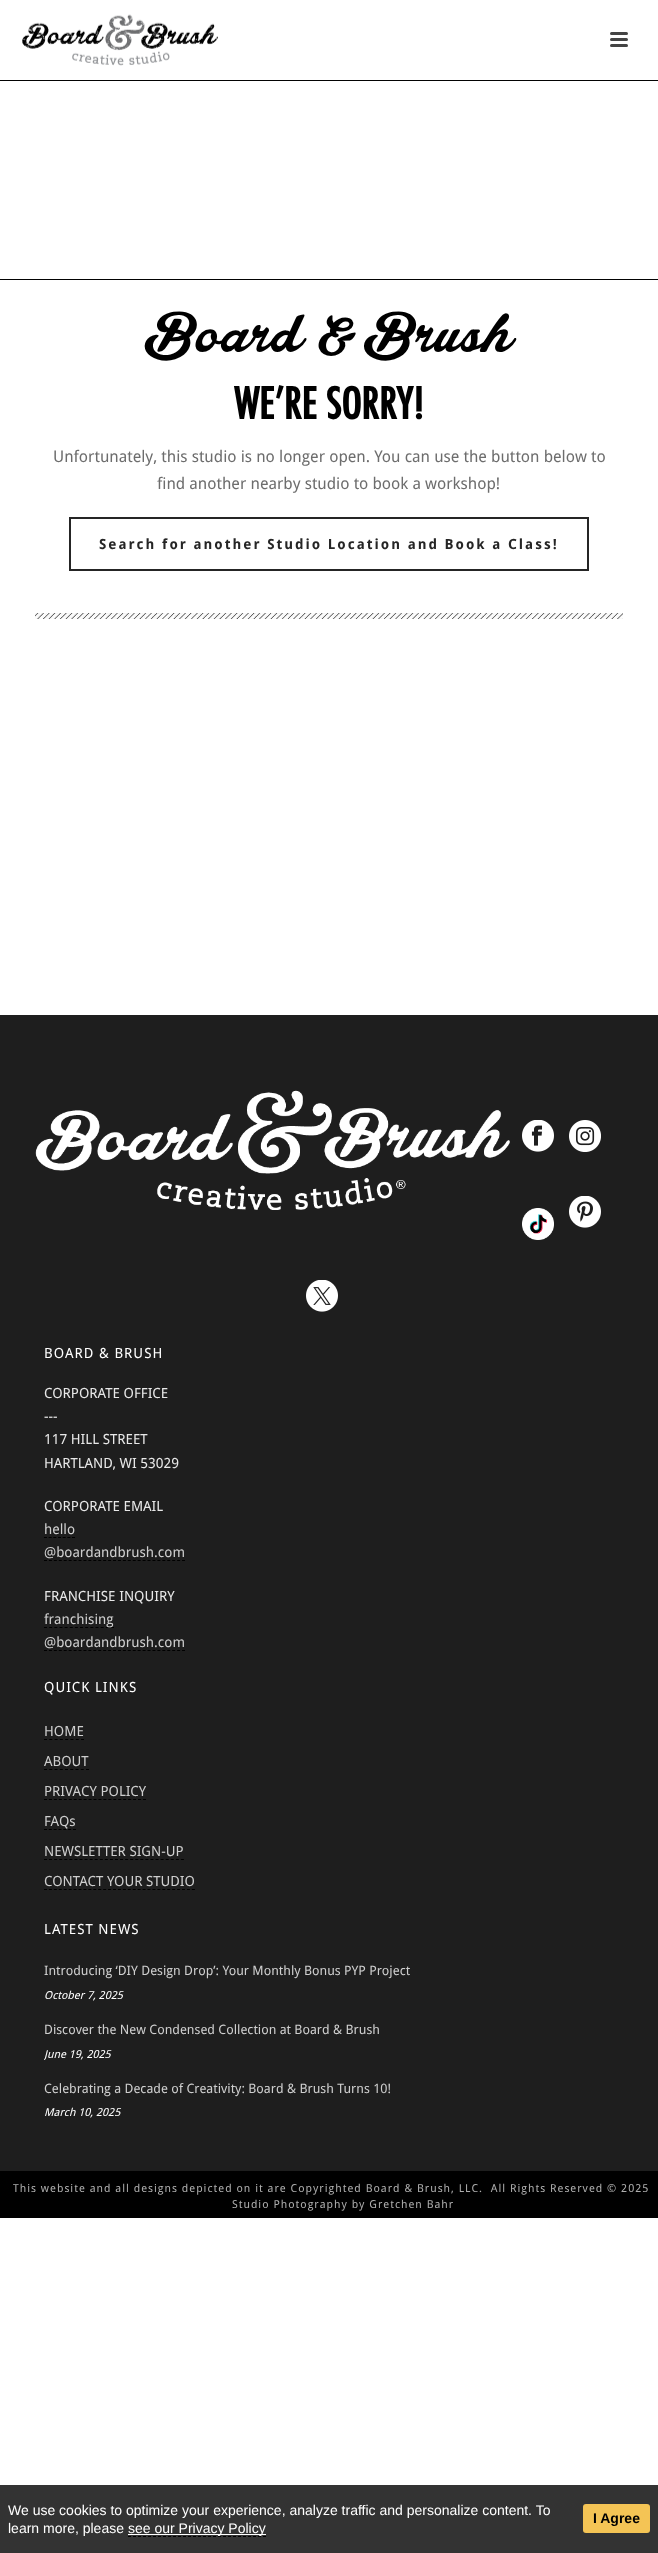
<svg xmlns="http://www.w3.org/2000/svg" width="658" height="2553" viewBox="0 0 658 2553">
  <style>
    .t1 { font: 60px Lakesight; fill: #000; }
    .t2 { font: bold 42px Futura; fill: #000; }
    .t3 { font: 16px Droid Sans; fill: #6d6d6d; }
    .t4 { font: bold 14px Droid Sans; letter-spacing: 2px; fill: #252525; }
    .t5 { font: 14px Droid Sans; letter-spacing: 1px; fill: #fff; }
    .t6 { font: 14px Droid Sans; fill: #e8e8e8; }
    .t7 { font: 14px Droid Sans; fill: #cecece; }
    .t8 { font: 13px Droid Sans; fill: #cecece; }
    .t9 { font: italic 11px Droid Sans; fill: #fff; }
    .t10 { font: 11px Droid Sans; letter-spacing: 1px; fill: #adadad; }
    .t11 { font: 14px Liberation Sans; fill: #fff; }
    .t12 { font: bold 14px Liberation Sans; fill: #000; }
  </style>
  <defs>
    <clipPath id="clip1"><rect x="44" y="2016" width="570" height="47"/></clipPath>
  </defs>
  <rect width="100%" height="100%" fill="#fff"/>
  <image x="22" y="14" width="196" height="52" href="images/1.png"/>
  <rect x="610" y="32" width="18" height="3" rx="1.5" fill="#444"/>
  <rect x="610" y="38" width="18" height="3" rx="1.5" fill="#444"/>
  <rect x="610" y="44" width="18" height="3" rx="1.5" fill="#444"/>
  <rect x="0" y="80" width="658" height="1" fill="#020202"/>
  <rect x="0" y="279" width="658" height="1" fill="#020202"/>
  <text x="144" y="352" class="t1">Board &amp; Brush</text>
  <text x="234" y="419" class="t2">WE’RE SORRY!</text>
  <text x="53" y="462" class="t3">Unfortunately, this studio is no longer open. You can use the button below to</text>
  <text x="157" y="489" class="t3">find another nearby studio to book a workshop!</text>
  <rect x="70" y="518" width="518" height="52" fill="none" stroke="#252525" stroke-width="2"/>
  <text x="99" y="549" class="t4">Search for another Studio Location and Book a Class!</text>
  <image x="35" y="613" width="588" height="6" href="images/2.png"/>
  <rect x="0" y="1015" width="658" height="1156" fill="#1e1e1e"/>
  <image x="35" y="1090" width="475" height="120" href="images/3.png"/>
  <image x="522" y="1120" width="32" height="32" href="images/4.png"/>
  <image x="569" y="1120" width="32" height="32" href="images/5.png"/>
  <image x="522" y="1208" width="32" height="32" href="images/6.png"/>
  <image x="569" y="1196" width="32" height="32" href="images/7.png"/>
  <image x="306" y="1280" width="32" height="32" href="images/8.png"/>
  <text x="44" y="1358" class="t5">BOARD &amp; BRUSH</text>
  <text x="44" y="1398" class="t6">CORPORATE OFFICE</text>
  <text x="44" y="1421" class="t6">---</text>
  <text x="44" y="1444" class="t6">117 HILL STREET</text>
  <text x="44" y="1468" class="t6">HARTLAND, WI 53029</text>
  <text x="44" y="1511" class="t6">CORPORATE EMAIL</text>
  <text x="44" y="1534" class="t7">hello</text>
  <path d="M44 1537.5H75" fill="none" stroke="#000" stroke-dasharray="3 1.67"/>
  <text x="44" y="1557" class="t7">@boardandbrush.com</text>
  <path d="M44 1560.5H185" fill="none" stroke="#000" stroke-dasharray="3 1.93"/>
  <text x="44" y="1601" class="t6">FRANCHISE INQUIRY</text>
  <path d="M44 1627.5H114" fill="none" stroke="#000" stroke-dasharray="3 2.15"/>
  <text x="44" y="1624" class="t7">franchising</text>
  <text x="44" y="1647" class="t7">@boardandbrush.com</text>
  <path d="M44 1650.5H185" fill="none" stroke="#000" stroke-dasharray="3 1.93"/>
  <text x="44" y="1692" class="t5">QUICK LINKS</text>
  <text x="44" y="1736" class="t7">HOME</text>
  <path d="M44 1739.5H84" fill="none" stroke="#000" stroke-dasharray="3 2.29"/>
  <text x="44" y="1766" class="t7">ABOUT</text>
  <path d="M44 1769.5H89" fill="none" stroke="#000" stroke-dasharray="3 2.25"/>
  <text x="44" y="1796" class="t7">PRIVACY POLICY</text>
  <path d="M44 1799.5H146" fill="none" stroke="#000" stroke-dasharray="3 1.95"/>
  <text x="44" y="1826" class="t7">FAQs</text>
  <path d="M44 1829.5H76" fill="none" stroke="#000" stroke-dasharray="3 1.83"/>
  <text x="44" y="1856" class="t7">NEWSLETTER SIGN-UP</text>
  <path d="M44 1859.5H184" fill="none" stroke="#000" stroke-dasharray="3 2.07"/>
  <text x="44" y="1886" class="t7">CONTACT YOUR STUDIO</text>
  <path d="M44 1889.5H195" fill="none" stroke="#000" stroke-dasharray="3 1.93"/>
  <text x="44" y="1934" class="t5">LATEST NEWS</text>
  <text x="44" y="1975" class="t8">Introducing ‘DIY Design Drop’: Your Monthly Bonus PYP Project</text>
  <text x="44" y="1999" class="t9">October 7, 2025</text>
  <text x="44" y="2034" class="t8">Discover the New Condensed Collection at Board &amp; Brush</text>
  <g clip-path="url(#clip1)">
    <text x="44" y="2058" class="t9">June 19, 2025</text>
  </g>
  <text x="44" y="2093" class="t8">Celebrating a Decade of Creativity: Board &amp; Brush Turns 10!</text>
  <text x="44" y="2116" class="t9">March 10, 2025</text>
  <rect x="0" y="2171" width="658" height="47" fill="#000"/>
  <text x="13" y="2192" class="t10" xml:space="preserve">This website and all designs depicted on it are Copyrighted Board &amp; Brush, LLC.  All Rights Reserved © 2025</text>
  <text x="232" y="2208" class="t10">Studio Photography by Gretchen Bahr</text>
  <rect x="0" y="2485" width="658" height="68" fill="#333"/>
  <text x="8" y="2515" class="t11">We use cookies to optimize your experience, analyze traffic and personalize content. To</text>
  <text x="8" y="2533" class="t11">learn more, please</text>
  <rect x="128" y="2534" width="138" height="1" fill="#fff"/>
  <text x="128" y="2533" class="t11">see our Privacy Policy</text>
  <path d="M128 2536.5H266" fill="none" stroke="#000" stroke-dasharray="3 2"/>
  <rect x="583" y="2504" width="67" height="29" rx="3" fill="#f4c455"/>
  <text x="593" y="2523" class="t12">I Agree</text>
</svg>
